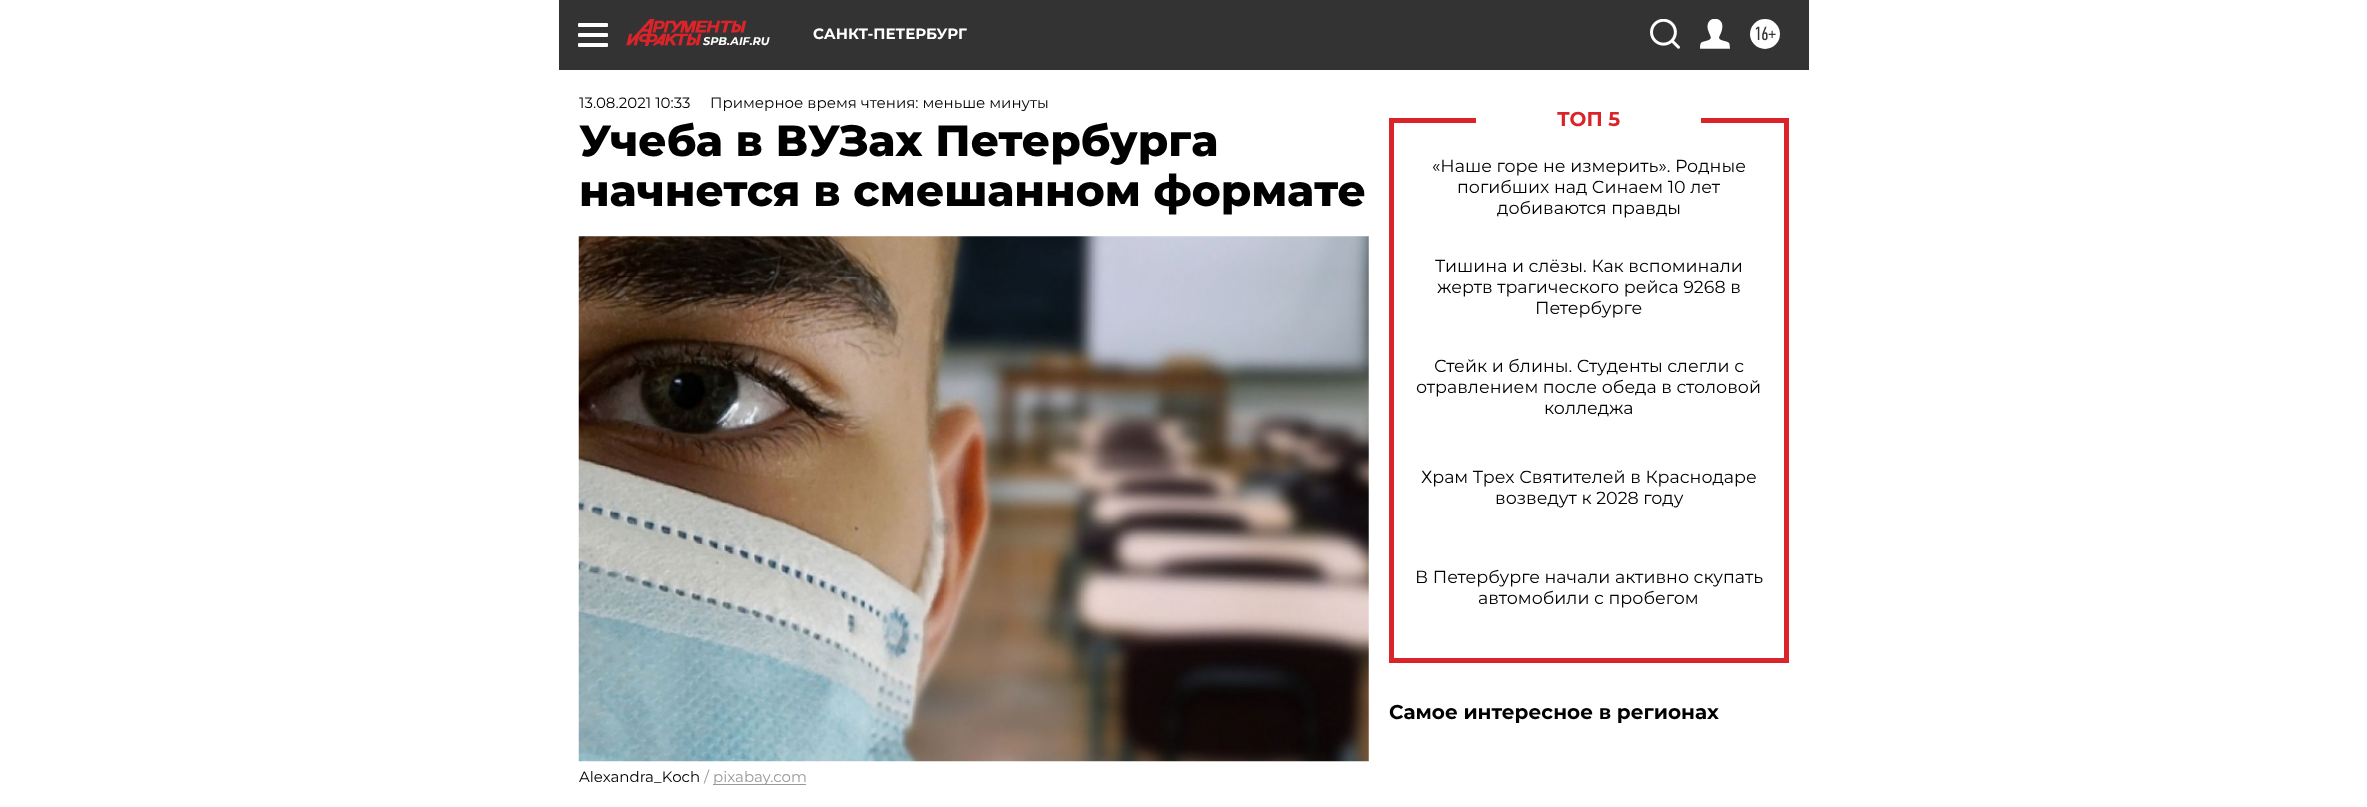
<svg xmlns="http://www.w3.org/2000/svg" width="2367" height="807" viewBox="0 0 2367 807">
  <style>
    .t1 { font: bold 15px Montserrat; fill: #fff; }
    .t2 { font: 19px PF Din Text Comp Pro; fill: #333; }
    .t3 { font: italic bold 11.25px Montserrat; fill: #fff; }
    .t4 { font: 15px Montserrat; fill: #000; }
    .t5 { font: 800 43.75px Montserrat; fill: #000; }
    .t6 { font: 15px Montserrat; fill: #999; }
    .t7 { font: bold 20px Montserrat; fill: #da2429; }
    .t8 { font: 17.5px Montserrat; fill: #000; }
    .t9 { font: bold 20px Montserrat; fill: #000; }
  </style>
  <rect width="100%" height="100%" fill="#fff"/>
  <rect x="559" y="0" width="1250" height="70" fill="#333"/>
  <rect x="578" y="23" width="30" height="4" rx="1" fill="#fff"/>
  <rect x="578" y="33" width="30" height="4" rx="1" fill="#fff"/>
  <rect x="578" y="43" width="30" height="4" rx="1" fill="#fff"/>
  <text x="813" y="39" class="t1">САНКТ-ПЕТЕРБУРГ</text>
  <image x="1650" y="19" width="30" height="30" href="images/1.png"/>
  <image x="1700" y="19" width="30" height="30" href="images/2.png"/>
  <circle cx="1765" cy="34" r="15" fill="#fff"/>
  <text x="1754" y="40" class="t2">16+</text>
  <image x="626" y="19" width="120" height="27" href="images/3.png"/>
  <text x="703" y="45" class="t3">SPB.AIF.RU</text>
  <text x="579" y="108" class="t4">13.08.2021 10:33</text>
  <text x="710" y="108" class="t4">Примерное время чтения: меньше минуты</text>
  <text x="579" y="156" class="t5">Учеба в ВУЗах Петербурга</text>
  <text x="579" y="206" class="t5">начнется в смешанном формате</text>
  <image x="578" y="236" width="791" height="526" href="images/4.png"/>
  <text x="579" y="782" class="t4">Alexandra_Koch</text>
  <text x="704" y="782" class="t6">/</text>
  <rect x="713" y="784" width="93" height="1" fill="#999"/>
  <text x="713" y="782" class="t6">pixabay.com</text>
  <rect x="1784" y="118" width="5" height="545" fill="#da2429"/>
  <rect x="1389" y="658" width="400" height="5" fill="#da2429"/>
  <rect x="1389" y="118" width="5" height="545" fill="#da2429"/>
  <rect x="1389" y="118" width="87" height="5" fill="#da2429"/>
  <text x="1557" y="126" class="t7">ТОП 5</text>
  <rect x="1701" y="118" width="88" height="5" fill="#da2429"/>
  <text x="1432" y="172" class="t8">«Наше горе не измерить». Родные</text>
  <text x="1457" y="193" class="t8">погибших над Синаем 10 лет</text>
  <text x="1497" y="214" class="t8">добиваются правды</text>
  <text x="1435" y="272" class="t8">Тишина и слёзы. Как вспоминали</text>
  <text x="1437" y="293" class="t8">жертв трагического рейса 9268 в</text>
  <text x="1535" y="314" class="t8">Петербурге</text>
  <text x="1434" y="372" class="t8">Стейк и блины. Студенты слегли с</text>
  <text x="1416" y="393" class="t8">отравлением после обеда в столовой</text>
  <text x="1544" y="414" class="t8">колледжа</text>
  <text x="1421" y="483" class="t8">Храм Трех Святителей в Краснодаре</text>
  <text x="1495" y="504" class="t8">возведут к 2028 году</text>
  <text x="1415" y="583" class="t8">В Петербурге начали активно скупать</text>
  <text x="1478" y="604" class="t8">автомобили с пробегом</text>
  <text x="1389" y="719" class="t9">Самое интересное в регионах</text>
</svg>
